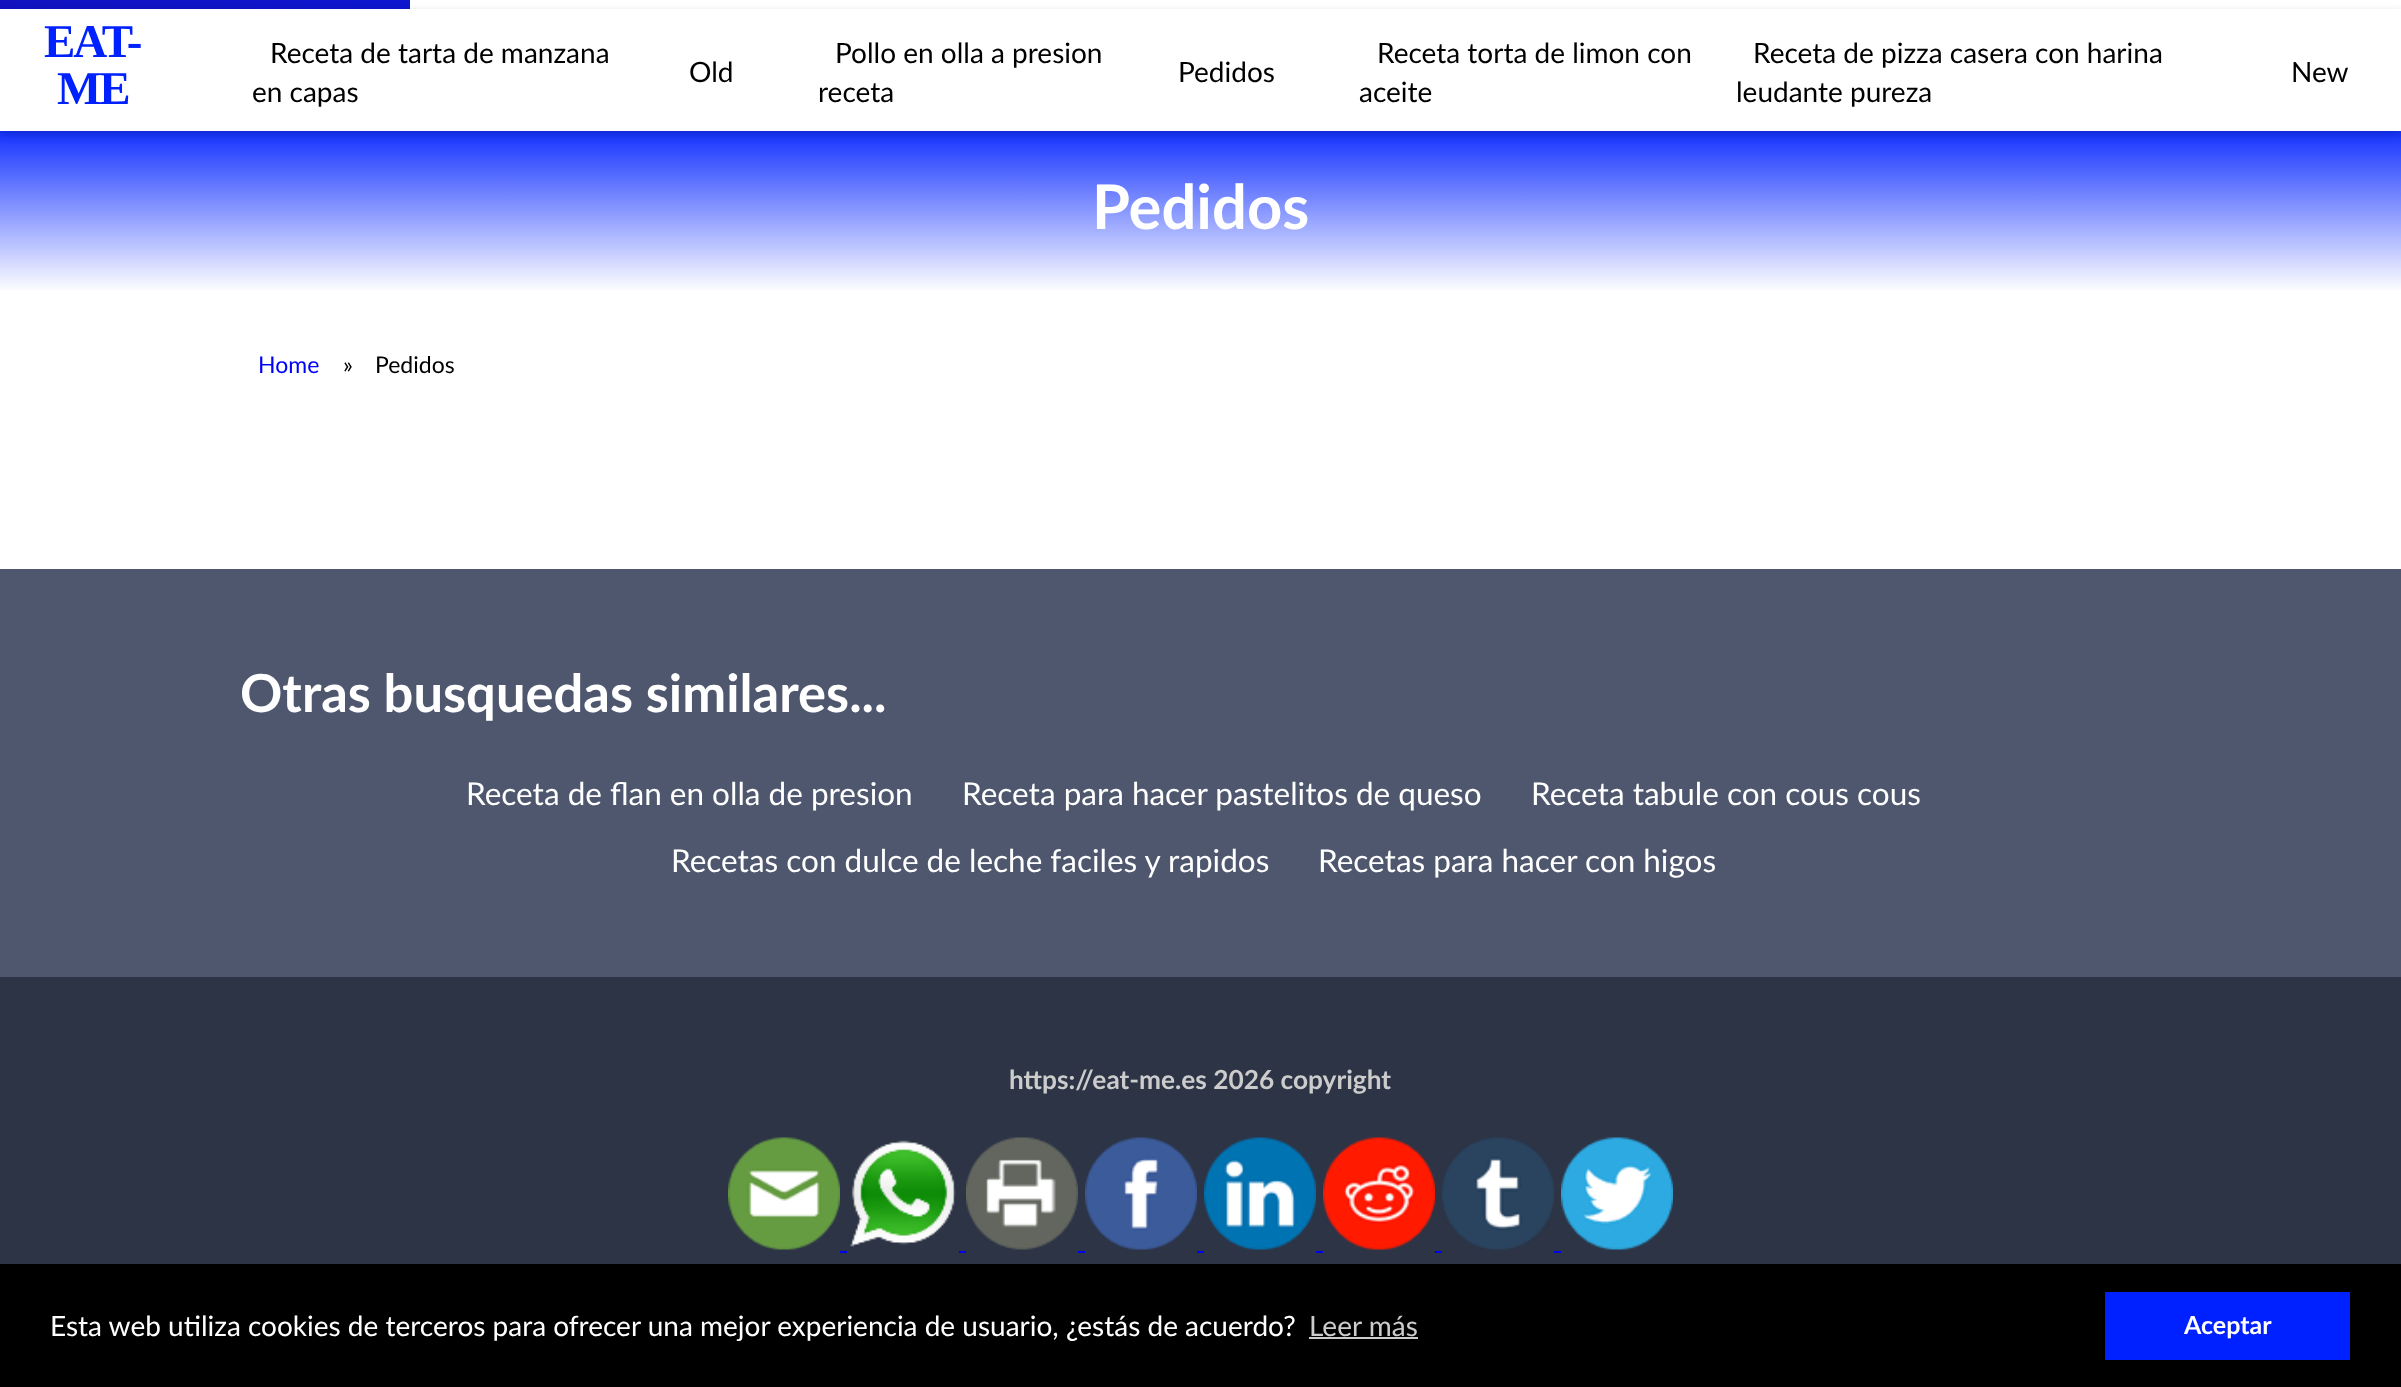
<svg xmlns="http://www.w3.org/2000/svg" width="2401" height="1387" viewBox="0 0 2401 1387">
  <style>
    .t1 { font: bold 47px Liberation Serif; letter-spacing: -2px; fill: #0021ff; }
    .t2 { font: 28px Lato; fill: #000; }
    .t3 { font: bold 61.5px Lato; fill: #fff; }
    .t4 { font: 23px Lato; fill: #00f; }
    .t5 { font: 23px Lato; fill: #000; }
    .t6 { font: bold 52.5px Lato; fill: #fff; }
    .t7 { font: 31.5px Lato; fill: #fff; }
    .t8 { font: bold 26.25px Lato; fill: #ccc; }
    .t9 { font: 28px Lato; fill: #fff; }
    .t10 { font: 28px Lato; fill: #ccc; }
    .t11 { font: bold 25px Lato; fill: #fff; }
  </style>
  <defs>
    <linearGradient id="g1" gradientUnits="userSpaceOnUse" x1="1237" y1="436" x2="401" y2="-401"><stop offset="0" stop-color="#0021ff"/><stop offset="1" stop-color="#1213bf"/></linearGradient>
    <linearGradient id="g2" gradientUnits="userSpaceOnUse" x1="1201" y1="117" x2="1201" y2="292"><stop offset="0" stop-color="#0021ff"/><stop offset="1" stop-color="#fff"/></linearGradient>
    <clipPath id="clip1"><path d="M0 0H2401V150H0ZM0 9H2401V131H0Z" clip-rule="evenodd"/></clipPath>
  </defs>
  <rect width="100%" height="100%" fill="#fff"/>
  <rect x="0" y="0" width="410" height="9" fill="url(#g1)"/>
  <rect x="0" y="131" width="2401" height="159" fill="url(#g2)"/>
  <g clip-path="url(#clip1)">
    <rect x="0" y="12" width="2401" height="123" fill="#00000029" filter="blur(4.5px)"/>
  </g>
  <text x="44" y="57" class="t1">EAT-</text>
  <text x="57" y="104" class="t1">ME</text>
  <text x="270" y="63" class="t2">Receta de tarta de manzana</text>
  <text x="252" y="102" class="t2">en capas</text>
  <text x="689" y="82" class="t2">Old</text>
  <text x="835" y="63" class="t2">Pollo en olla a presion</text>
  <text x="818" y="102" class="t2">receta</text>
  <text x="1178" y="82" class="t2">Pedidos</text>
  <text x="1377" y="63" class="t2">Receta torta de limon con</text>
  <text x="1359" y="102" class="t2">aceite</text>
  <text x="1753" y="63" class="t2">Receta de pizza casera con harina</text>
  <text x="1736" y="102" class="t2">leudante pureza</text>
  <text x="2291" y="82" class="t2">New</text>
  <text x="1092" y="229" class="t3">Pedidos</text>
  <text x="258" y="373" class="t4">Home</text>
  <text x="343" y="373" class="t5">»</text>
  <text x="375" y="373" class="t5">Pedidos</text>
  <rect x="0" y="569" width="2401" height="408" fill="#4e576e"/>
  <text x="240" y="712" class="t6">Otras busquedas similares...</text>
  <text x="466" y="805" class="t7">Receta de flan en olla de presion</text>
  <text x="962" y="805" class="t7">Receta para hacer pastelitos de queso</text>
  <text x="1531" y="805" class="t7">Receta tabule con cous cous</text>
  <text x="671" y="872" class="t7">Recetas con dulce de leche faciles y rapidos</text>
  <text x="1318" y="872" class="t7">Recetas para hacer con higos</text>
  <rect x="0" y="977" width="2401" height="287" fill="#2c3446"/>
  <text x="1009" y="1089" class="t8">https://eat-me.es 2026 copyright</text>
  <image x="728" y="1137" width="112" height="113" href="images/1.png"/>
  <image x="850" y="1140" width="106" height="107" href="images/2.png"/>
  <image x="966" y="1137" width="112" height="113" href="images/3.png"/>
  <image x="1085" y="1137" width="112" height="113" href="images/4.png"/>
  <image x="1204" y="1137" width="112" height="113" href="images/5.png"/>
  <image x="1323" y="1137" width="112" height="113" href="images/6.png"/>
  <image x="1442" y="1137" width="112" height="113" href="images/7.png"/>
  <image x="1561" y="1137" width="112" height="113" href="images/8.png"/>
  <rect x="840" y="1251" width="7" height="2" fill="#00e"/>
  <rect x="959" y="1251" width="7" height="2" fill="#00e"/>
  <rect x="1078" y="1251" width="7" height="2" fill="#00e"/>
  <rect x="1197" y="1251" width="7" height="2" fill="#00e"/>
  <rect x="1316" y="1251" width="7" height="2" fill="#00e"/>
  <rect x="1435" y="1251" width="7" height="2" fill="#00e"/>
  <rect x="1554" y="1251" width="7" height="2" fill="#00e"/>
  <rect x="0" y="1264" width="2401" height="123" fill="#000"/>
  <text x="50" y="1336" class="t9">Esta web utiliza cookies de terceros para ofrecer una mejor experiencia de usuario, ¿estás de acuerdo?</text>
  <text x="1309" y="1336" class="t10">Leer más</text>
  <rect x="1309" y="1337" width="109" height="2" fill="#ccc"/>
  <rect x="2105" y="1292" width="245" height="68" fill="#0021ff"/>
  <text x="2184" y="1334" class="t11">Aceptar</text>
</svg>
